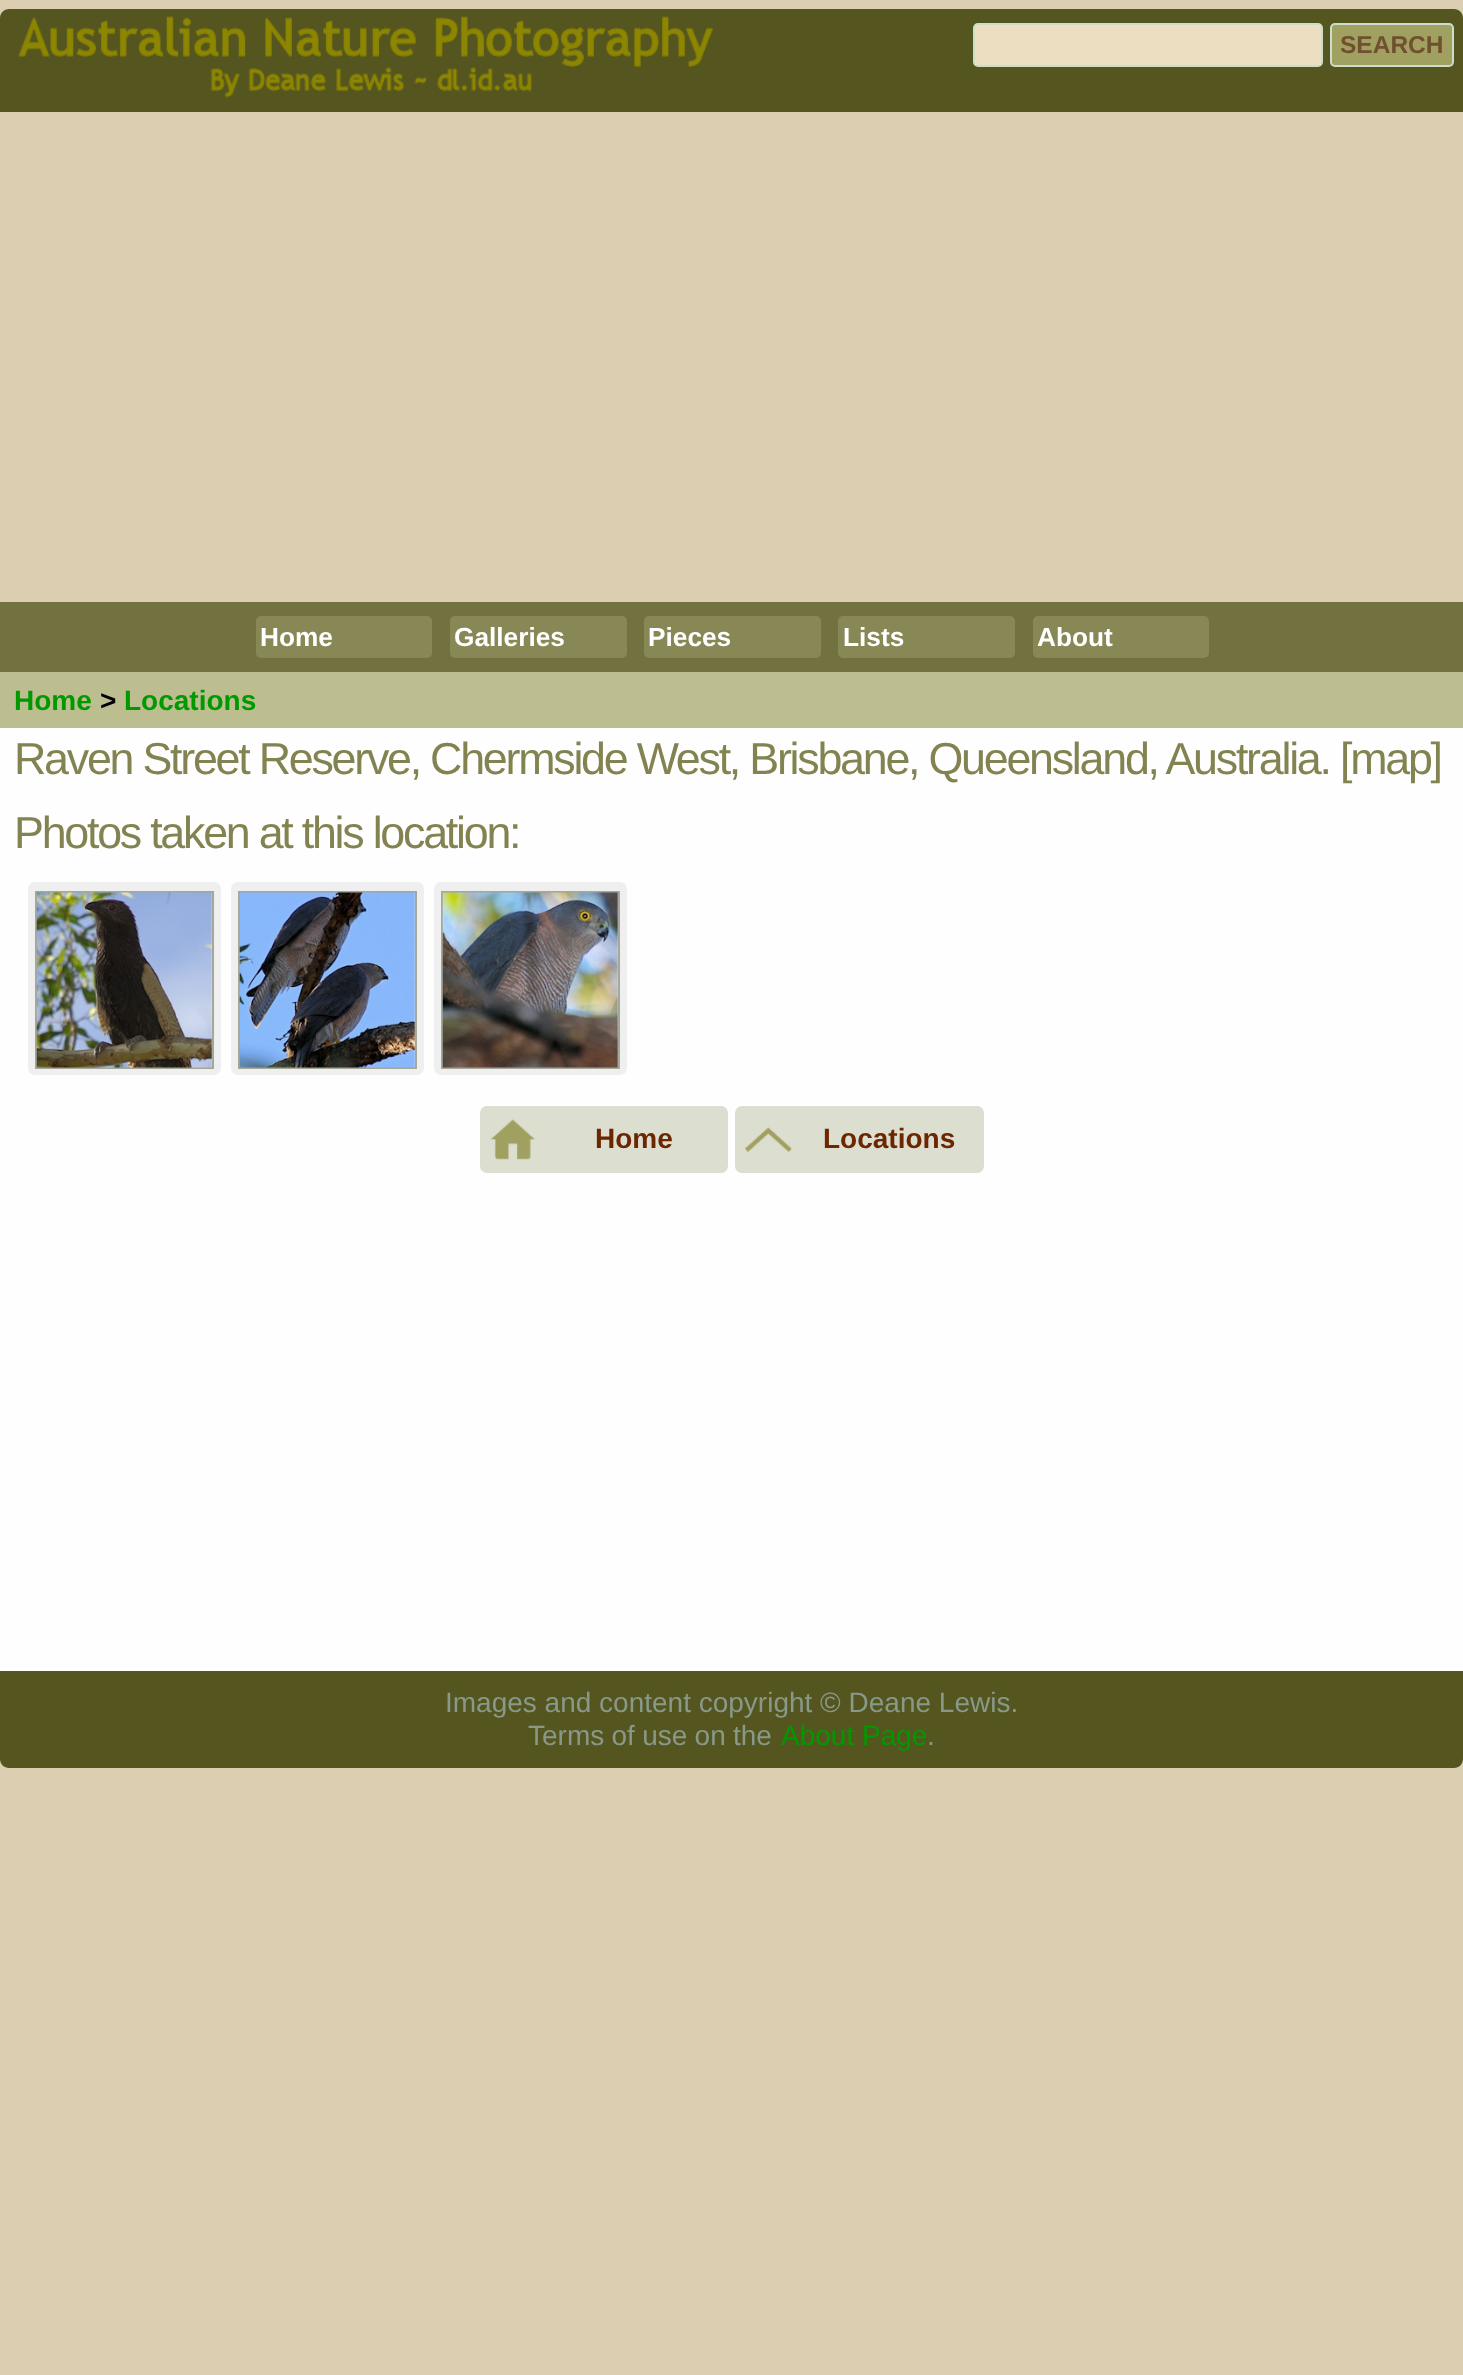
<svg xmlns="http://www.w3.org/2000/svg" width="1463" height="2375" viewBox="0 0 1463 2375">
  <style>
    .t1 { font: bold 24.5px Liberation Sans; fill: #705030; }
    .t2 { font: bold 26.25px Liberation Sans; fill: #fff; }
    .t3 { font: bold 28px Liberation Sans; fill: #090; }
    .t4 { font: bold 28px Liberation Sans; fill: #000; }
    .t5 { font: 44.8px Liberation Sans; letter-spacing: -2.25px; fill: #838351; }
    .t6 { font: bold 28px Liberation Sans; fill: #6c2600; }
    .t7 { font: 28px Liberation Sans; fill: #898; }
    .t8 { font: 28px Liberation Sans; fill: #090; }
  </style>
  <rect width="100%" height="100%" fill="#dcceb0"/>
  <path d="M9 9H1454C1459 9 1463 13 1463 18V112H0V18C0 13 4 9 9 9Z" fill="#555520"/>
  <image x="18" y="16" width="695" height="82" href="images/1.png"/>
  <rect x="974" y="24" width="348" height="42" rx="4" fill="#ecdec0" stroke="#cdc" stroke-width="2"/>
  <rect x="1331" y="24" width="122" height="42" rx="4" fill="#a0a060" stroke="#cdc" stroke-width="2"/>
  <text x="1340" y="53" class="t1">SEARCH</text>
  <rect x="0" y="602" width="1463" height="70" fill="#727240"/>
  <rect x="256" y="616" width="176" height="42" rx="5" fill="#888856"/>
  <text x="260" y="646" class="t2">Home</text>
  <rect x="450" y="616" width="177" height="42" rx="5" fill="#888856"/>
  <text x="454" y="646" class="t2">Galleries</text>
  <rect x="644" y="616" width="177" height="42" rx="5" fill="#888856"/>
  <text x="648" y="646" class="t2">Pieces</text>
  <rect x="838" y="616" width="177" height="42" rx="5" fill="#888856"/>
  <text x="843" y="646" class="t2">Lists</text>
  <rect x="1033" y="616" width="176" height="42" rx="5" fill="#888856"/>
  <text x="1037" y="646" class="t2">About</text>
  <rect x="0" y="728" width="1463" height="943" fill="#fefefe"/>
  <rect x="0" y="672" width="1463" height="56" fill="#bcbe90"/>
  <text x="14" y="710" class="t3">Home</text>
  <text x="100" y="710" class="t4">&gt;</text>
  <text x="124" y="710" class="t3">Locations</text>
  <text x="14" y="774" class="t5">Raven Street Reserve, Chermside West, Brisbane, Queensland, Australia.</text>
  <text x="1340" y="774" class="t5">[map]</text>
  <text x="14" y="848" class="t5">Photos taken at this location:</text>
  <rect x="28" y="882" width="193" height="193" rx="7" fill="#eeefee"/>
  <rect x="36" y="892" width="177" height="176" fill="none" stroke="#a5a79a" stroke-width="2"/>
  <image x="36" y="892" width="176" height="176" href="images/2.png"/>
  <rect x="231" y="882" width="193" height="193" rx="7" fill="#eeefee"/>
  <rect x="239" y="892" width="177" height="176" fill="none" stroke="#a5a79a" stroke-width="2"/>
  <image x="239" y="892" width="176" height="176" href="images/3.png"/>
  <rect x="434" y="882" width="193" height="193" rx="7" fill="#eeefee"/>
  <rect x="442" y="892" width="177" height="176" fill="none" stroke="#a5a79a" stroke-width="2"/>
  <image x="442" y="892" width="176" height="176" href="images/4.png"/>
  <rect x="482" y="1108" width="244" height="63" rx="5" fill="#dcded0" stroke="#dcded0" stroke-width="4"/>
  <image x="490" y="1119" width="45" height="41" href="images/5.png"/>
  <text x="595" y="1148" class="t6">Home</text>
  <rect x="737" y="1108" width="245" height="63" rx="5" fill="#dcded0" stroke="#dcded0" stroke-width="4"/>
  <image x="744" y="1127" width="48" height="25" href="images/6.png"/>
  <text x="823" y="1148" class="t6">Locations</text>
  <path d="M0 1671H1463V1759C1463 1764 1459 1768 1454 1768H9C4 1768 0 1764 0 1759Z" fill="#555520"/>
  <text x="445" y="1712" class="t7">Images and content copyright © Deane Lewis.</text>
  <text x="528" y="1745" word-spacing="-0.5" class="t7">Terms of use on the</text>
  <text x="781" y="1745" class="t8">About Page</text>
  <text x="927" y="1745" class="t7">.</text>
</svg>
